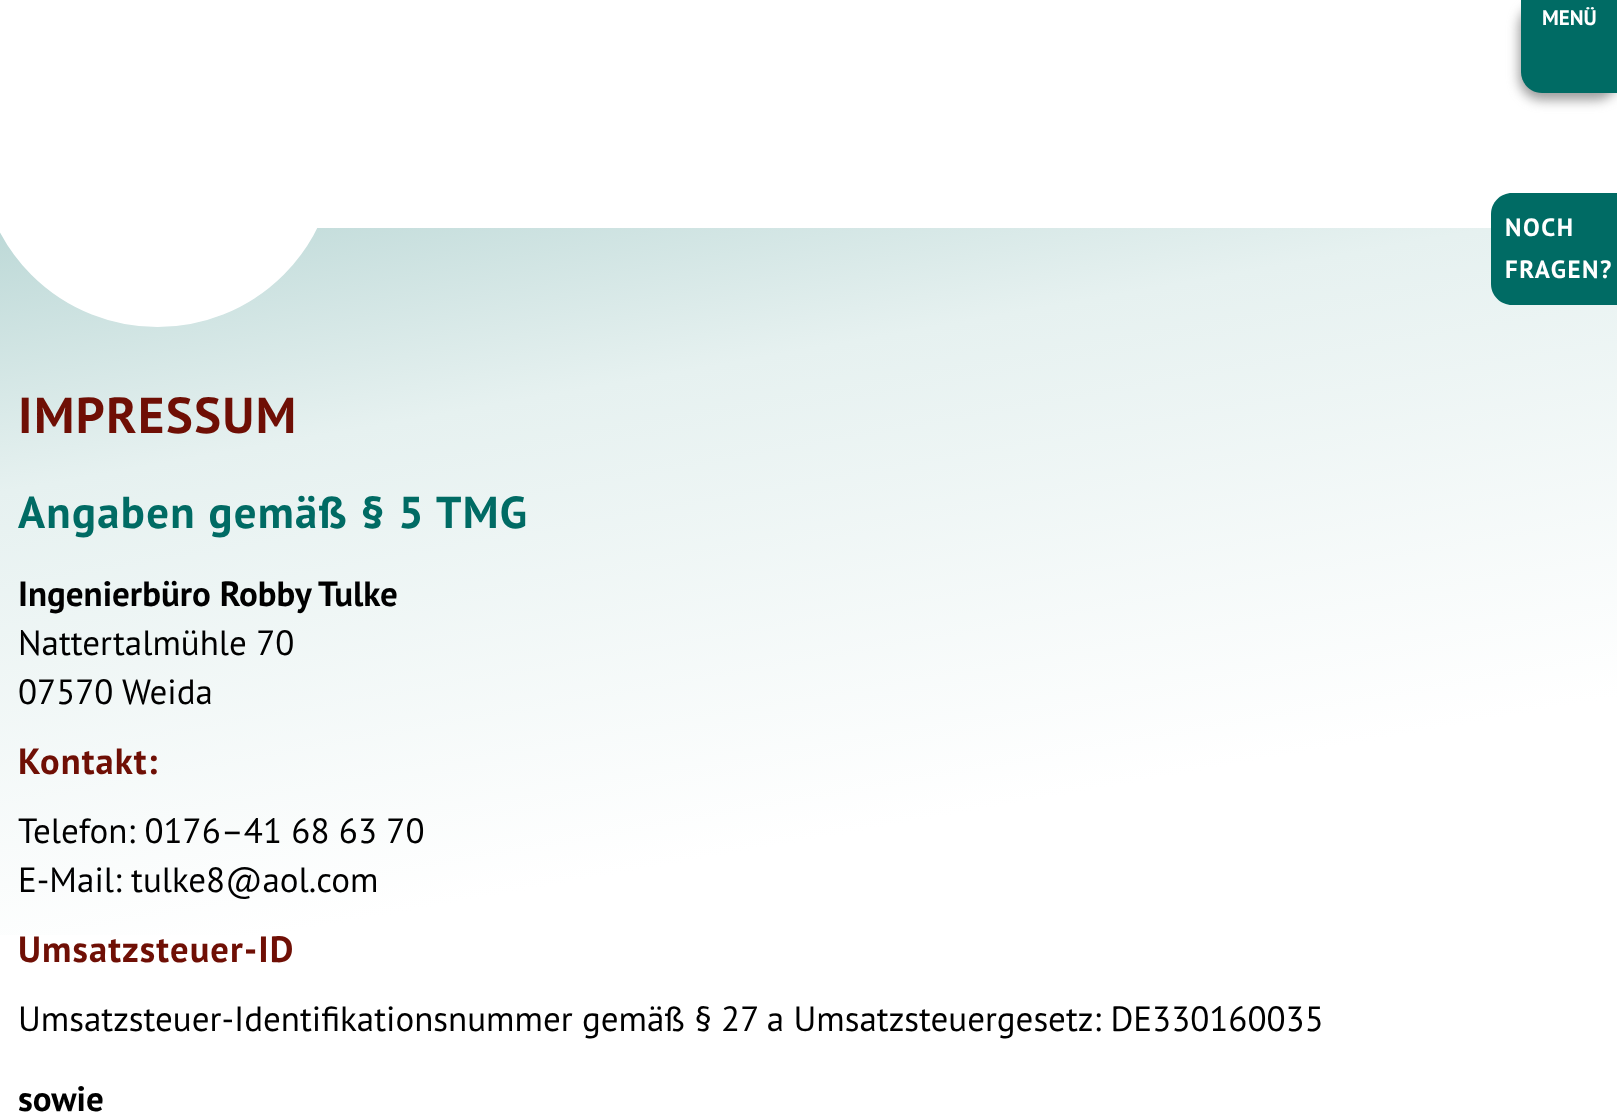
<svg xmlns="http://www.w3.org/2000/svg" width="1617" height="1120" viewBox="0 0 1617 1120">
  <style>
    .t1 { font: bold 21px PT Sans; fill: #fff; }
    .t2 { font: bold 25px PT Sans; letter-spacing: 1.5px; fill: #fff; }
    .t3 { font: bold 50.5px PT Sans; letter-spacing: 1.5px; fill: #6f0f05; }
    .t4 { font: bold 44.75px PT Sans; letter-spacing: 1.3px; fill: #006b64; }
    .t5 { font: bold 35px PT Sans; fill: #000; }
    .t6 { font: 35px PT Sans; fill: #000; }
    .t7 { font: bold 36.5px PT Sans; letter-spacing: 1.1px; fill: #6f0f05; }
  </style>
  <defs>
    <linearGradient id="g1" gradientUnits="userSpaceOnUse" x1="929" y1="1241" x2="688" y2="-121"><stop offset="0" stop-color="#fff"/><stop offset="0.3" stop-color="#fff"/><stop offset="0.65" stop-color="#e6f1f0"/><stop offset="1" stop-color="#9ac4c2"/></linearGradient>
  </defs>
  <rect width="100%" height="100%" fill="#fff"/>
  <rect x="1519" y="4" width="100" height="96" rx="23" fill="#7b7b7bbf" filter="blur(6px)"/>
  <path d="M1521 0H1617V93H1542C1530.5 93 1521 83.5 1521 72Z" fill="#006b64"/>
  <text x="1542" y="25" class="t1">MENÜ</text>
  <rect x="0" y="228" width="1617" height="707" fill="url(#g1)"/>
  <circle cx="157.5" cy="148.5" r="158.5" fill="#fff" stroke="#fff" stroke-width="40"/>
  <path d="M1512 193H1617V305H1512C1500.5 305 1491 295.5 1491 284V214C1491 202.5 1500.5 193 1512 193Z" fill="#006b64"/>
  <text x="1505" y="236" class="t2">NOCH</text>
  <text x="1505" y="278" class="t2">FRAGEN?</text>
  <text x="18" y="433" class="t3">IMPRESSUM</text>
  <text x="18" y="528" class="t4">Angaben gemäß § 5 TMG</text>
  <text x="18" y="606" class="t5">Ingenierbüro Robby Tulke</text>
  <text x="18" y="655" class="t6">Nattertalmühle 70</text>
  <text x="18" y="704" class="t6">07570 Weida</text>
  <text x="18" y="774" class="t7">Kontakt:</text>
  <text x="18" y="843" class="t6">Telefon: 0176–41 68 63 70</text>
  <text x="18" y="892" class="t6">E-Mail: tulke8@aol.com</text>
  <text x="18" y="962" class="t7">Umsatzsteuer-ID</text>
  <text x="18" y="1031" class="t6">Umsatzsteuer-Identifikationsnummer gemäß § 27 a Umsatzsteuergesetz: DE330160035</text>
  <text x="18" y="1111" class="t5">sowie</text>
</svg>
